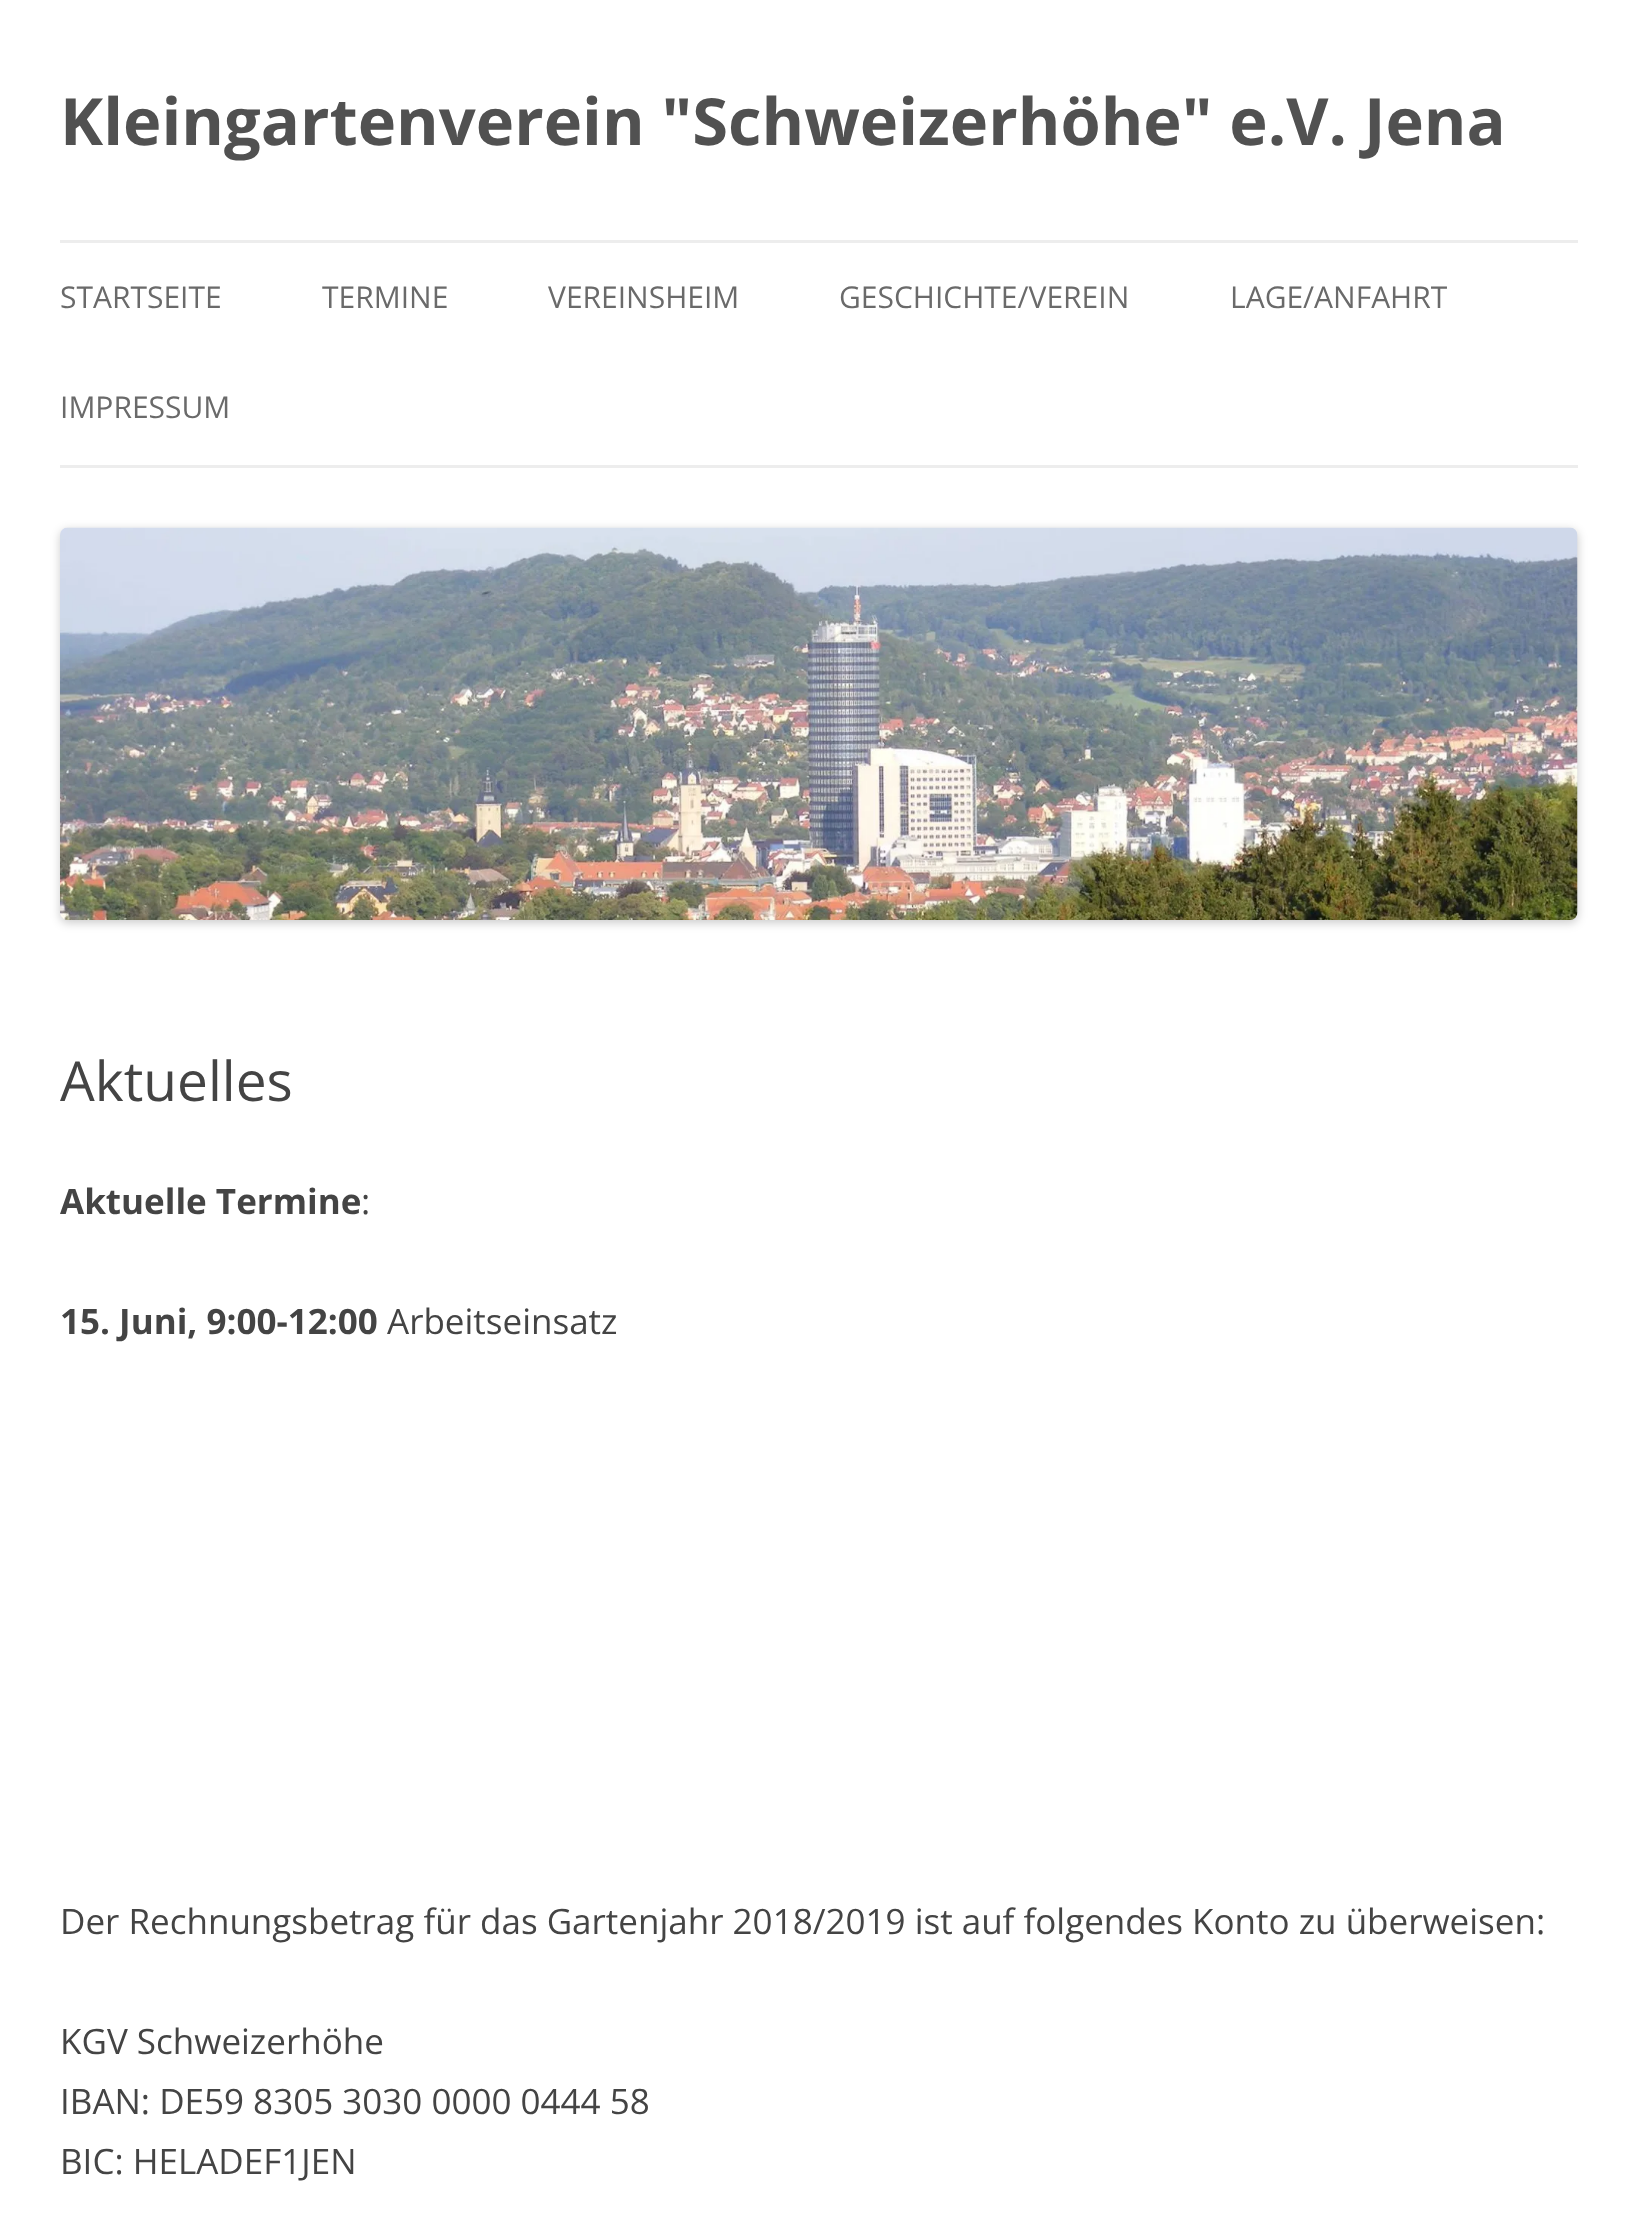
<svg xmlns="http://www.w3.org/2000/svg" width="1637" height="2240" viewBox="0 0 1637 2240">
  <style>
    .t1 { font: bold 65px Open Sans; fill: #515151; }
    .t2 { font: 30px Open Sans; fill: #6a6a6a; }
    .t3 { font: 55px Open Sans; fill: #444; }
    .t4 { font: bold 35px Open Sans; fill: #444; }
    .t5 { font: 35px Open Sans; fill: #444; }
  </style>
  <rect width="100%" height="100%" fill="#fff"/>
  <text x="60" y="145" class="t1">Kleingartenverein "Schweizerhöhe" e.V. Jena</text>
  <rect x="60" y="240" width="1518" height="3" fill="#ededed"/>
  <rect x="60" y="465" width="1518" height="3" fill="#ededed"/>
  <text x="60" y="308" class="t2">STARTSEITE</text>
  <text x="322" y="308" class="t2">TERMINE</text>
  <text x="548" y="308" class="t2">VEREINSHEIM</text>
  <text x="839" y="308" class="t2">GESCHICHTE/VEREIN</text>
  <text x="1230" y="308" class="t2">LAGE/ANFAHRT</text>
  <text x="60" y="418" class="t2">IMPRESSUM</text>
  <rect x="60" y="530" width="1518" height="393" rx="8" fill="#00000033" filter="blur(5px)"/>
  <image x="60" y="527" width="1518" height="393" href="images/1.png"/>
  <text x="60" y="1101" class="t3">Aktuelles</text>
  <text x="60" y="1214" class="t4">Aktuelle Termine</text>
  <text x="361" y="1214" class="t5">:</text>
  <text x="60" y="1334" class="t4">15. Juni, 9:00-12:00</text>
  <text x="387" y="1334" class="t5">Arbeitseinsatz</text>
  <text x="60" y="1934" class="t5">Der Rechnungsbetrag für das Gartenjahr 2018/2019 ist auf folgendes Konto zu überweisen:</text>
  <text x="60" y="2054" class="t5">KGV Schweizerhöhe</text>
  <text x="60" y="2114" class="t5">IBAN: DE59 8305 3030 0000 0444 58</text>
  <text x="60" y="2174" class="t5">BIC: HELADEF1JEN</text>
</svg>
